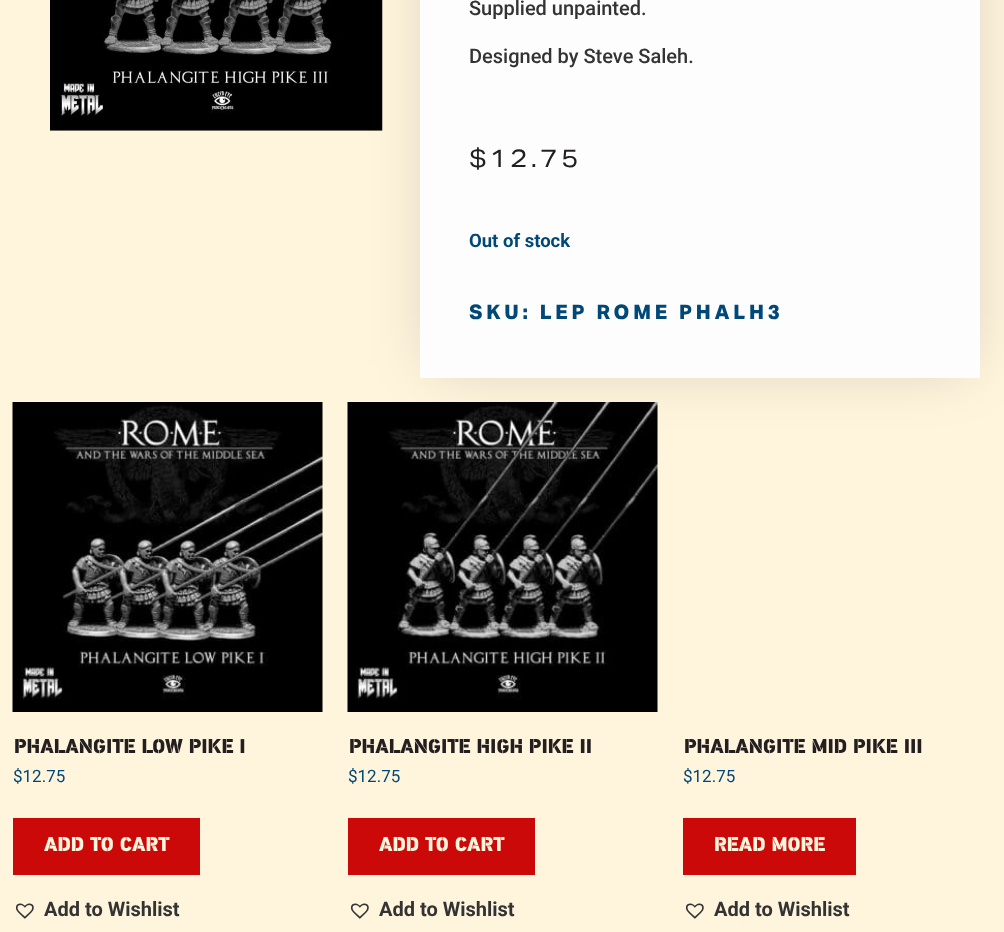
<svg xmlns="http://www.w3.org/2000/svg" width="1004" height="932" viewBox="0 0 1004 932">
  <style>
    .t1 { font: 500 20px Roboto; fill: #333; }
    .t2 { font: 25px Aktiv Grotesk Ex; letter-spacing: 3px; fill: #231f20; }
    .t3 { font: bold 18.5px Roboto; fill: #004878; }
    .t4 { font: bold 20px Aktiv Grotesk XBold; letter-spacing: 3.75px; fill: #004878; }
    .t5 { font: 900 20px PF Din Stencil; fill: #231f20; }
    .t6 { font: 17px Roboto; fill: #004878; }
    .t7 { font: 900 20px PF Din Stencil; fill: #fff4dc; }
    .t8 { font: bold 20px Roboto; fill: #333; }
  </style>
  <rect width="100%" height="100%" fill="#fff4dc"/>
  <image x="50" y="0" width="333" height="131" href="images/1.png"/>
  <rect x="433" y="-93" width="535" height="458" fill="#0000002b" filter="blur(31px)"/>
  <rect x="420" y="0" width="560" height="378" fill="#fdfdfd"/>
  <text x="469" y="15" class="t1">Supplied unpainted.</text>
  <text x="469" y="63" class="t1">Designed by Steve Saleh.</text>
  <text x="469" y="167" class="t2">$12.75</text>
  <text x="469" y="247" class="t3">Out of stock</text>
  <text x="469" y="319" class="t4">SKU: LEP ROME PHALH3</text>
  <image x="12" y="402" width="311" height="310" href="images/2.png"/>
  <text x="14" y="753" class="t5">PHALANGITE LOW PIKE I</text>
  <text x="13" y="782" class="t6">$12.75</text>
  <rect x="13" y="818" width="187" height="57" fill="#cb0909"/>
  <text x="44" y="851" class="t7">ADD TO CART</text>
  <image x="15" y="903" width="19" height="16" href="images/3.png"/>
  <text x="44" y="916" class="t8">Add to Wishlist</text>
  <image x="347" y="402" width="311" height="310" href="images/4.png"/>
  <text x="349" y="753" class="t5">PHALANGITE HIGH PIKE II</text>
  <text x="348" y="782" class="t6">$12.75</text>
  <rect x="348" y="818" width="187" height="57" fill="#cb0909"/>
  <text x="379" y="851" class="t7">ADD TO CART</text>
  <image x="350" y="903" width="19" height="16" href="images/3.png"/>
  <text x="379" y="916" class="t8">Add to Wishlist</text>
  <text x="684" y="753" class="t5">PHALANGITE MID PIKE III</text>
  <text x="683" y="782" class="t6">$12.75</text>
  <rect x="683" y="818" width="173" height="57" fill="#cb0909"/>
  <text x="714" y="851" class="t7">READ MORE</text>
  <image x="685" y="903" width="19" height="16" href="images/3.png"/>
  <text x="714" y="916" class="t8">Add to Wishlist</text>
</svg>
